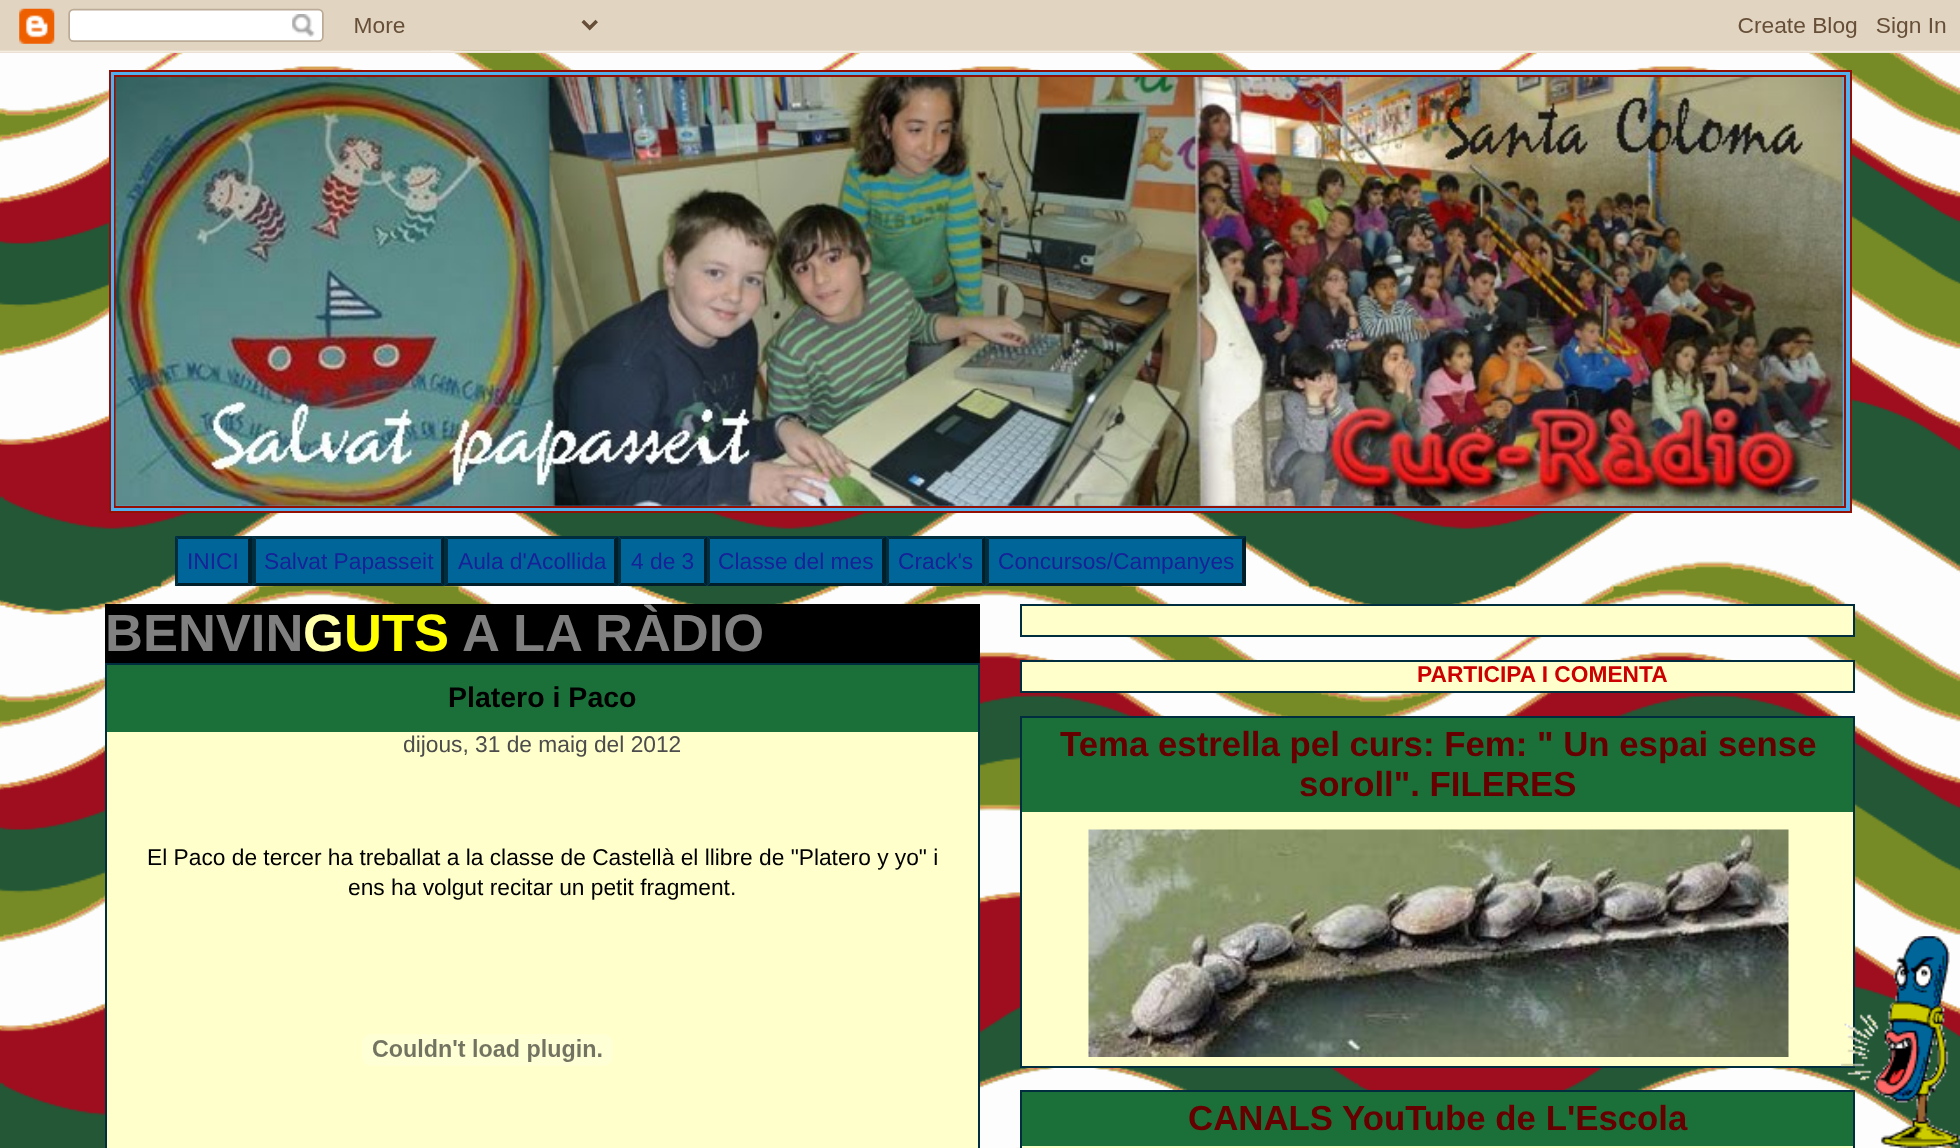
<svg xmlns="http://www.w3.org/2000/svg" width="1960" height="1148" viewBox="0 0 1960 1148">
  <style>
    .t1 { font: 22.75px Liberation Sans; fill: #162398; }
    .t2 { font: bold 52.5px Liberation Sans; fill: #808080; }
    .t3 { font: bold 52.5px Liberation Sans; fill: #ffffa8; }
    .t4 { font: bold 52.5px Liberation Sans; fill: #ff0; }
    .t5 { font: bold 28.5px Liberation Sans; fill: #000; }
    .t6 { font: 22.75px Liberation Sans; fill: #4c4c4c; }
    .t7 { font: 22.75px Liberation Sans; fill: #000; }
    .t8 { font: bold 22.75px Liberation Sans; fill: #c00; }
    .t9 { font: bold 34.8px Liberation Sans; fill: #600; }
  </style>
  <rect width="100%" height="100%" fill="#fff"/>
  <image x="0" y="50" width="1960" height="1098" href="images/1.png"/>
  <image x="0" y="0" width="1960" height="53" href="images/2.png"/>
  <rect x="110" y="71" width="1741" height="441" fill="#52b0ef" stroke="#940f04" stroke-width="2"/>
  <rect x="115" y="76" width="1730" height="431" fill="none" stroke="#940f04" stroke-width="2"/>
  <image x="115" y="77" width="1728" height="429" href="images/3.png"/>
  <rect x="175" y="536" width="1071" height="50" fill="#069"/>
  <path d="M175 536H252L248 539H178Z" fill="#002e3f"/>
  <path d="M252 536V586L248 583V539Z" fill="#001f2a"/>
  <path d="M252 586H175L178 583H248Z" fill="#001f2a"/>
  <path d="M175 586V536L178 539V583Z" fill="#002e3f"/>
  <text x="187" y="569" class="t1">INICI</text>
  <path d="M252 536H444L441 539H256Z" fill="#002e3f"/>
  <path d="M444 536V586L441 583V539Z" fill="#001f2a"/>
  <path d="M444 586H252L256 583H441Z" fill="#001f2a"/>
  <path d="M252 586V536L256 539V583Z" fill="#002e3f"/>
  <text x="264" y="569" class="t1">Salvat Papasseit</text>
  <path d="M444 536H618L614 539H448Z" fill="#002e3f"/>
  <path d="M618 536V586L614 583V539Z" fill="#001f2a"/>
  <path d="M618 586H444L448 583H614Z" fill="#001f2a"/>
  <path d="M444 586V536L448 539V583Z" fill="#002e3f"/>
  <text x="458" y="569" class="t1">Aula d'Acollida</text>
  <path d="M618 536H707L704 539H621Z" fill="#002e3f"/>
  <path d="M707 536V586L704 583V539Z" fill="#001f2a"/>
  <path d="M707 586H618L621 583H704Z" fill="#001f2a"/>
  <path d="M618 586V536L621 539V583Z" fill="#002e3f"/>
  <text x="631" y="569" class="t1">4 de 3</text>
  <path d="M707 536H886L882 539H710Z" fill="#002e3f"/>
  <path d="M886 536V586L882 583V539Z" fill="#001f2a"/>
  <path d="M886 586H707L710 583H882Z" fill="#001f2a"/>
  <path d="M707 586V536L710 539V583Z" fill="#002e3f"/>
  <text x="718" y="569" class="t1">Classe del mes</text>
  <path d="M886 536H985L982 539H889Z" fill="#002e3f"/>
  <path d="M985 536V586L982 583V539Z" fill="#001f2a"/>
  <path d="M985 586H886L889 583H982Z" fill="#001f2a"/>
  <path d="M886 586V536L889 539V583Z" fill="#002e3f"/>
  <text x="898" y="569" class="t1">Crack's</text>
  <path d="M985 536H1246L1242 539H989Z" fill="#002e3f"/>
  <path d="M1246 536V586L1242 583V539Z" fill="#001f2a"/>
  <path d="M1246 586H985L989 583H1242Z" fill="#001f2a"/>
  <path d="M985 586V536L989 539V583Z" fill="#002e3f"/>
  <text x="998" y="569" class="t1">Concursos/Campanyes</text>
  <rect x="105" y="604" width="875" height="59" fill="#000"/>
  <text x="105" y="651" class="t2">BENVIN</text>
  <text x="303" y="651" class="t3">G</text>
  <text x="344" y="651" class="t4">UTS</text>
  <text x="462" y="651" class="t2">A</text>
  <text x="513" y="651" class="t2">LA</text>
  <text x="595" y="651" class="t2">RÀDIO</text>
  <rect x="107" y="732" width="871" height="416" fill="#ffc"/>
  <rect x="106" y="664" width="873" height="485" fill="none" stroke="#002e3f" stroke-width="2"/>
  <rect x="107" y="665" width="871" height="67" fill="#1b703a"/>
  <text x="448" y="707" class="t5">Platero i Paco</text>
  <text x="403" y="752" class="t6">dijous, 31 de maig del 2012</text>
  <text x="147" y="865" class="t7">El Paco de tercer ha treballat a la classe de Castellà el llibre de "Platero y yo" i</text>
  <text x="348" y="895" class="t7">ens ha volgut recitar un petit fragment.</text>
  <image x="362" y="1034" width="251" height="32" href="images/4.png"/>
  <rect x="1021" y="605" width="833" height="31" fill="#ffc" stroke="#002e3f" stroke-width="2"/>
  <rect x="1021" y="661" width="833" height="31" fill="#ffc" stroke="#002e3f" stroke-width="2"/>
  <text x="1417" y="682" class="t8">PARTICIPA I COMENTA</text>
  <rect x="1022" y="812" width="831" height="254" fill="#ffc"/>
  <rect x="1021" y="717" width="833" height="350" fill="none" stroke="#002e3f" stroke-width="2"/>
  <rect x="1022" y="718" width="831" height="94" fill="#1b703a"/>
  <text x="1060" y="756" class="t9">Tema estrella pel curs: Fem: " Un espai sense</text>
  <text x="1299" y="796" class="t9">soroll". FILERES</text>
  <image x="1088" y="829" width="701" height="228" href="images/5.png"/>
  <rect x="1022" y="1146" width="831" height="2" fill="#ffc"/>
  <rect x="1021" y="1091" width="833" height="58" fill="none" stroke="#002e3f" stroke-width="2"/>
  <rect x="1022" y="1092" width="831" height="54" fill="#1b703a"/>
  <text x="1188" y="1130" class="t9">CANALS YouTube de L'Escola</text>
  <image x="1841" y="936" width="119" height="212" href="images/6.png"/>
</svg>
